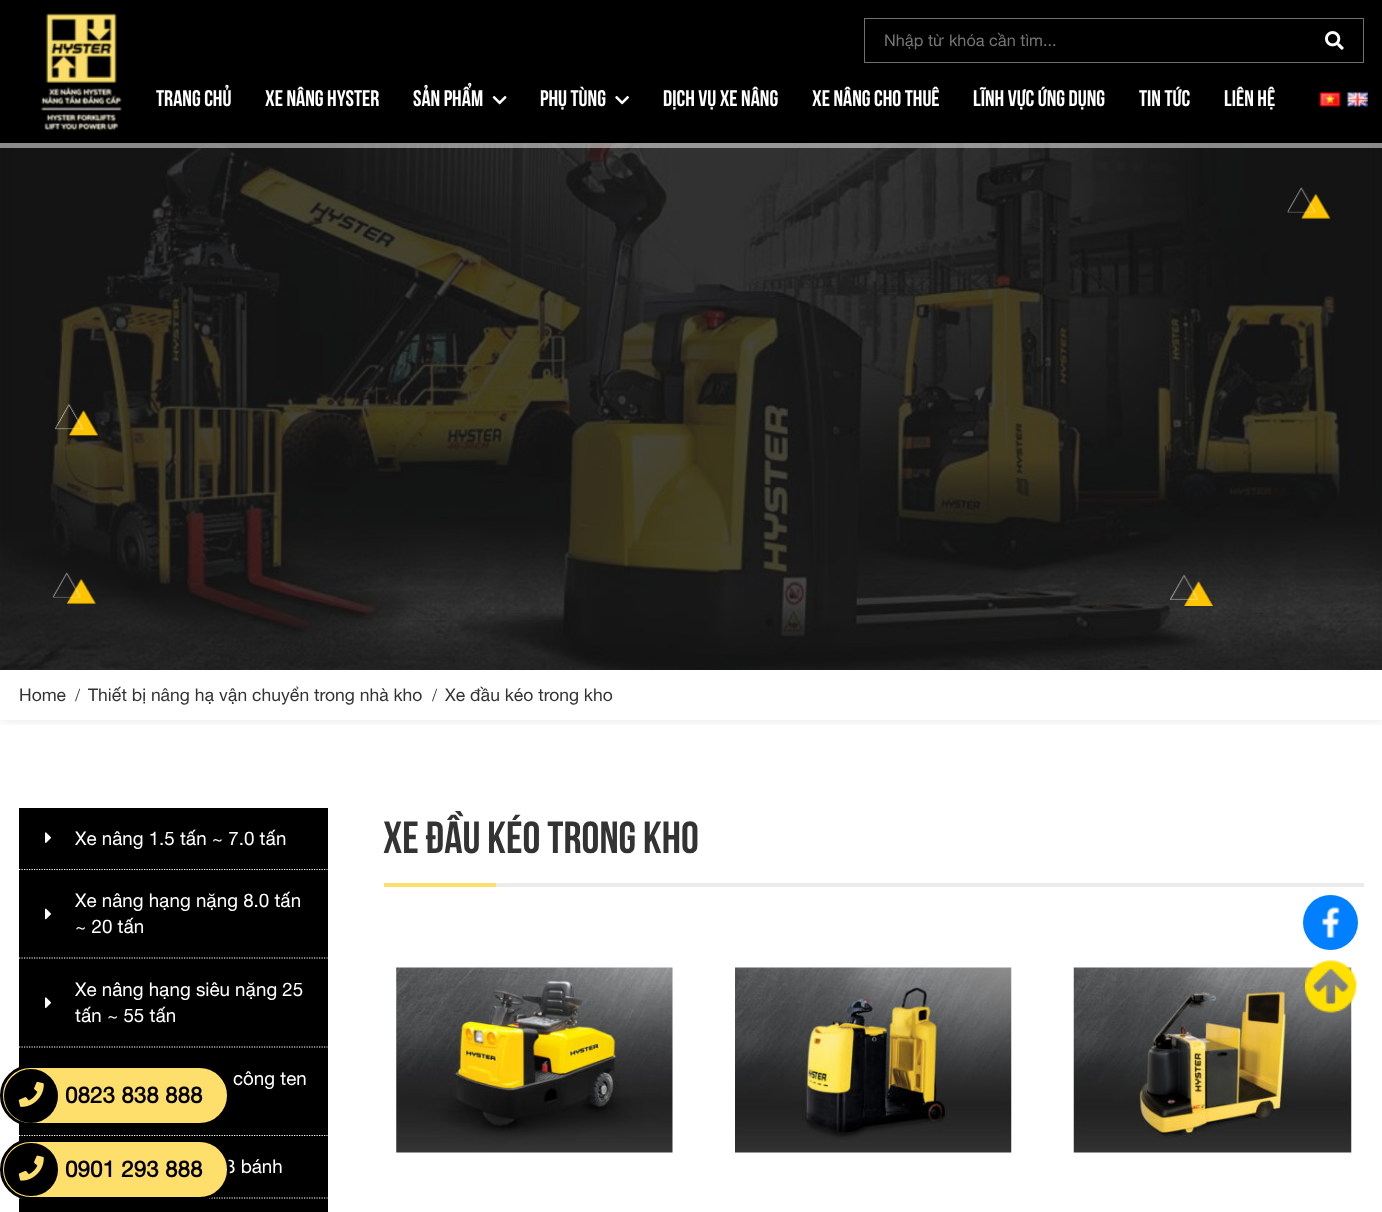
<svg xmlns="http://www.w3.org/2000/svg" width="1382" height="1212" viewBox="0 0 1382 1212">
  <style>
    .t1 { font: 16.25px Helvetica Neue; fill: #757575; }
    .t2 { font: 22.5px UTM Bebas; fill: #fff; }
    .t3 { font: 17.5px Helvetica Neue; fill: #333; }
    .t4 { font: 18.75px Liberation Serif; fill: #333; }
    .t5 { font: 18.75px Helvetica Neue; fill: #fff; }
    .t6 { font: 45px UTM Bebas; fill: #333; }
    .t7 { font: bold 22.5px Helvetica Neue; fill: #000; }
  </style>
  <defs>
    <clipPath id="clip1"><rect x="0" y="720" width="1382" height="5"/></clipPath>
  </defs>
  <rect width="100%" height="100%" fill="#fff"/>
  <g clip-path="url(#clip1)">
    <rect x="0" y="670" width="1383" height="50" fill="#0000001a" filter="blur(6px)"/>
  </g>
  <image x="0" y="143" width="1382" height="527" href="images/7.png"/>
  <rect x="-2.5" y="-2.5" width="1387" height="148" fill="none" stroke="#ffffff80" stroke-width="5"/>
  <rect x="0" y="0" width="1382" height="143" fill="#000"/>
  <image x="40" y="13" width="82" height="118" href="images/1.png"/>
  <rect x="864.5" y="18.5" width="499" height="44" fill="none" stroke="#707070"/>
  <text x="884" y="46" class="t1">Nhập từ khóa cần tìm...</text>
  <image x="1325" y="31" width="19" height="19" href="images/2.png"/>
  <text x="156" y="106" class="t2">TRANG CHỦ</text>
  <text x="265" y="106" class="t2">XE NÂNG HYSTER</text>
  <text x="413" y="106" class="t2">SẢN PHẨM</text>
  <image x="492" y="96" width="15" height="9" href="images/3.png"/>
  <text x="540" y="106" class="t2">PHỤ TÙNG</text>
  <image x="615" y="96" width="14" height="9" href="images/4.png"/>
  <text x="663" y="106" class="t2">DỊCH VỤ XE NÂNG</text>
  <text x="812" y="106" class="t2">XE NÂNG CHO THUÊ</text>
  <text x="973" y="106" class="t2">LĨNH VỰC ỨNG DỤNG</text>
  <text x="1139" y="106" class="t2">TIN TỨC</text>
  <text x="1224" y="106" class="t2">LIÊN HỆ</text>
  <image x="1319" y="91" width="22" height="16" href="images/5.png"/>
  <image x="1346" y="91" width="22" height="16" href="images/6.png"/>
  <text x="19" y="701" class="t3">Home</text>
  <text x="75" y="701" class="t4">/</text>
  <text x="88" y="701" class="t3">Thiết bị nâng hạ vận chuyển trong nhà kho</text>
  <text x="432" y="701" class="t4">/</text>
  <text x="445" y="701" class="t3">Xe đầu kéo trong kho</text>
  <rect x="19" y="808" width="309" height="62" fill="#000"/>
  <path d="M19 869.5H327.5" fill="none" stroke="#fff" stroke-width="1.2" stroke-dasharray="1.25 1.25"/>
  <image x="45" y="832" width="6" height="11" href="images/8.png"/>
  <text x="75" y="845" class="t5">Xe nâng 1.5 tấn ~ 7.0 tấn</text>
  <rect x="19" y="870" width="309" height="266" fill="#000"/>
  <path d="M19 958H327.5" fill="none" stroke="#fff" stroke-width="1.2" stroke-dasharray="1.25 1.25"/>
  <text x="75" y="907" class="t5">Xe nâng hạng nặng 8.0 tấn</text>
  <image x="45" y="908" width="6" height="12" href="images/9.png"/>
  <text x="75" y="933" class="t5">~ 20 tấn</text>
  <path d="M19 1047H327.5" fill="none" stroke="#fff" stroke-width="1.2" stroke-dasharray="1.25 1.25"/>
  <text x="75" y="996" class="t5">Xe nâng hạng siêu nặng 25</text>
  <image x="45" y="997" width="6" height="11" href="images/8.png"/>
  <text x="75" y="1022" class="t5">tấn ~ 55 tấn</text>
  <path d="M19 1135.5H327.5" fill="none" stroke="#fff" stroke-width="1.2" stroke-dasharray="1.25 1.25"/>
  <text x="233" y="1085" class="t5">công ten</text>
  <rect x="19" y="1136" width="309" height="76" fill="#000"/>
  <path d="M19 1198H327.5" fill="none" stroke="#fff" stroke-width="1.2" stroke-dasharray="1.25 1.25"/>
  <text x="225" y="1173" class="t5">3 bánh</text>
  <text x="383" y="853" class="t6">XE ĐẦU KÉO TRONG KHO</text>
  <rect x="384" y="883" width="112" height="4" fill="#fedf6b"/>
  <rect x="496" y="883" width="868" height="4" fill="#ebebeb"/>
  <image x="396" y="967" width="277" height="186" href="images/10.png"/>
  <image x="735" y="967" width="277" height="186" href="images/11.png"/>
  <image x="1073" y="967" width="279" height="186" href="images/12.png"/>
  <image x="1305" y="960" width="53" height="53" href="images/13.png"/>
  <rect x="1.5" y="1066.5" width="227" height="58" rx="29" fill="#fedf6b" stroke="#000" stroke-width="3"/>
  <circle cx="31" cy="1096" r="27" fill="#000"/>
  <image x="18" y="1081" width="26" height="26" href="images/14.png"/>
  <text x="65" y="1103" class="t7">0823 838 888</text>
  <rect x="1.5" y="1140.5" width="227" height="58" rx="29" fill="#fedf6b" stroke="#000" stroke-width="3"/>
  <rect x="4" y="1143" width="54" height="53" rx="26.5" fill="#000"/>
  <image x="18" y="1155" width="26" height="26" href="images/15.png"/>
  <text x="65" y="1177" class="t7">0901 293 888</text>
  <circle cx="1330.5" cy="922.5" r="27.5" fill="#007fff"/>
  <image x="1321" y="907" width="19" height="31" href="images/16.png"/>
</svg>
